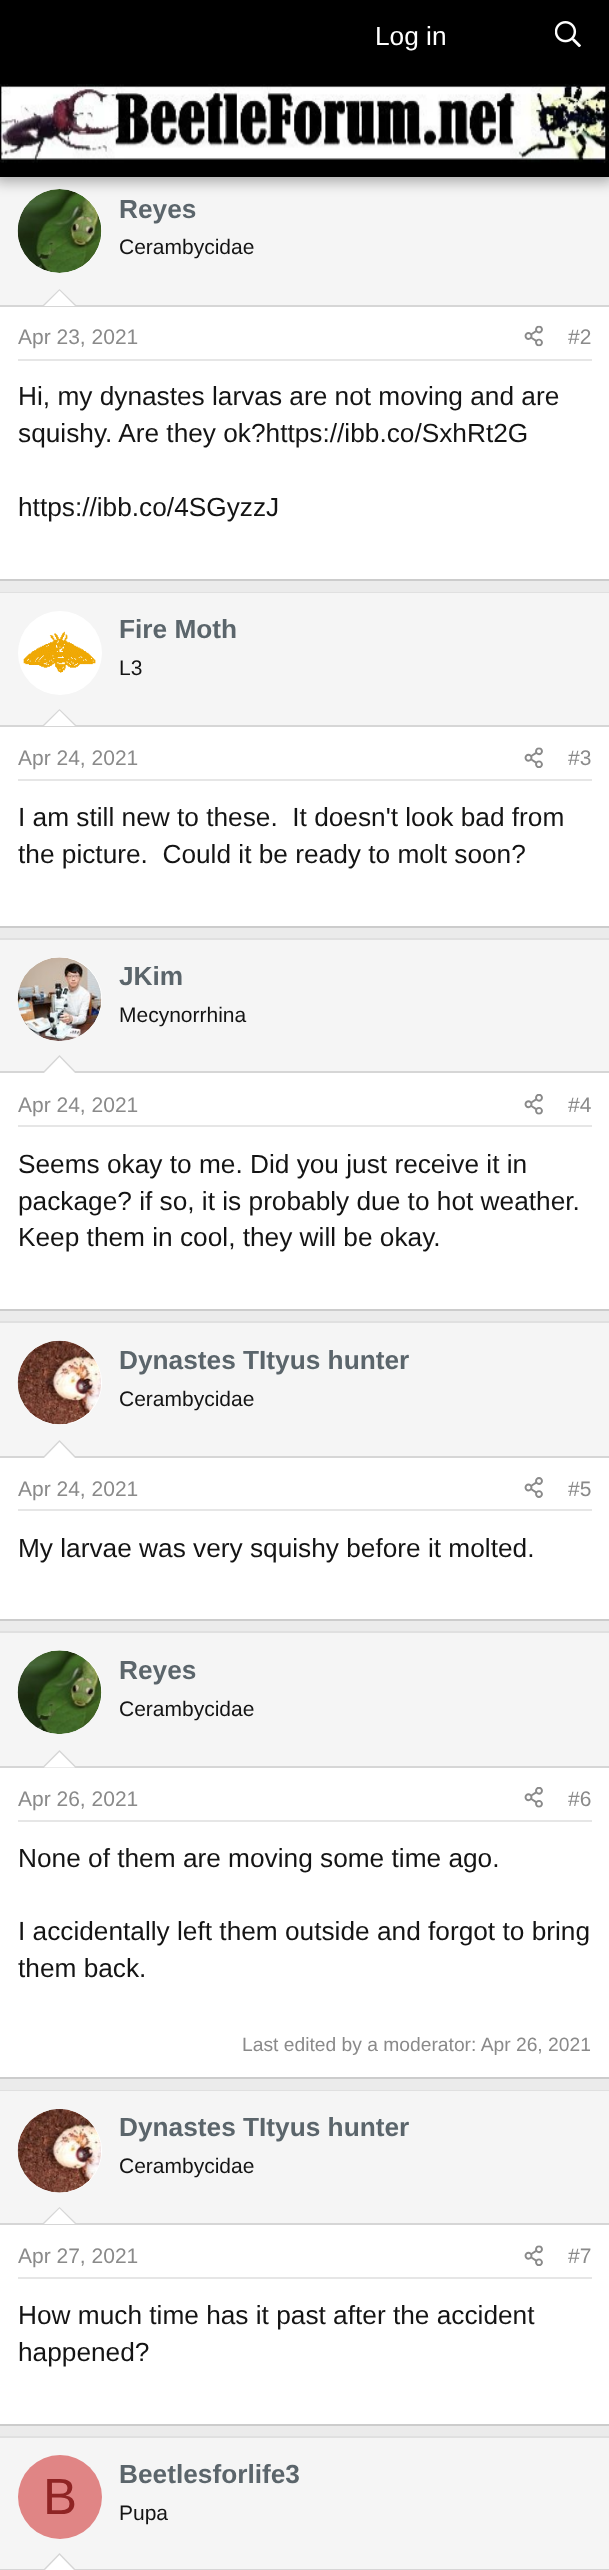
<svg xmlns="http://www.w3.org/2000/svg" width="609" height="2570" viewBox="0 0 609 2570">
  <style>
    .t1 { font: 26.25px Liberation Sans; fill: #fff; }
    .t2 { font: bold 26.25px Liberation Sans; fill: #5b656b; }
    .t3 { font: 21px Liberation Sans; fill: #141414; }
    .t4 { font: 21px Liberation Sans; fill: #8a8a8a; }
    .t5 { font: 26.25px Liberation Sans; fill: #141414; }
    .t6 { font: 19.25px Liberation Sans; fill: #8a8a8a; }
    .t7 { font: 51px Liberation Sans; fill: #8f2424; }
  </style>
  <rect width="100%" height="100%" fill="#ebebeb"/>
  <rect x="0" y="177" width="609" height="128" fill="#f5f5f5"/>
  <circle cx="60" cy="231" r="42" fill="#fff"/>
  <image x="17" y="189" width="85" height="84" href="images/3.png"/>
  <rect x="-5" y="-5" width="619" height="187" fill="#0000004d" filter="blur(7px)"/>
  <rect x="0" y="0" width="609" height="177" fill="#000"/>
  <text x="375" y="45" class="t1">Log in</text>
  <image x="555" y="21" width="26" height="26" href="images/1.png"/>
  <image x="0" y="84" width="609" height="79" href="images/2.png"/>
  <rect x="0" y="307" width="609" height="272" fill="#fff"/>
  <rect x="0" y="579" width="609" height="2" fill="#ccc"/>
  <rect x="0" y="305" width="609" height="2" fill="#d6d6d6"/>
  <text x="119" y="218" class="t2">Reyes</text>
  <text x="119" y="254" class="t3">Cerambycidae</text>
  <path d="M77 306H42L59.5 289Z" fill="#d6d6d6"/>
  <path d="M75 306H44L59.5 290.5Z" fill="#fff"/>
  <rect x="18" y="359" width="574" height="2" fill="#e6e6e6"/>
  <text x="18" y="344" class="t4">Apr 23, 2021</text>
  <image x="524" y="325" width="19" height="22" href="images/4.png"/>
  <text x="568" y="344" class="t4">#2</text>
  <text x="18" y="405" class="t5">Hi, my dynastes larvas are not moving and are</text>
  <text x="18" y="442" class="t5">squishy. Are they ok?https://ibb.co/SxhRt2G</text>
  <text x="18" y="516" class="t5">https://ibb.co/4SGyzzJ</text>
  <rect x="0" y="727" width="609" height="199" fill="#fff"/>
  <rect x="0" y="592" width="609" height="1" fill="#e0e0e0"/>
  <rect x="0" y="926" width="609" height="2" fill="#ccc"/>
  <rect x="0" y="593" width="609" height="132" fill="#f5f5f5"/>
  <rect x="0" y="725" width="609" height="2" fill="#d6d6d6"/>
  <circle cx="60" cy="653" r="42" fill="#fff"/>
  <image x="23" y="631" width="73" height="42" href="images/5.png"/>
  <text x="119" y="638" class="t2">Fire Moth</text>
  <text x="119" y="675" class="t3">L3</text>
  <path d="M77 726H42L59.5 709Z" fill="#d6d6d6"/>
  <path d="M75 726H44L59.5 710.5Z" fill="#fff"/>
  <rect x="18" y="779" width="574" height="2" fill="#e6e6e6"/>
  <text x="18" y="765" class="t4">Apr 24, 2021</text>
  <image x="524" y="747" width="19" height="21" href="images/6.png"/>
  <text x="568" y="765" class="t4">#3</text>
  <text x="18" y="826" class="t5" xml:space="preserve">I am still new to these.  It doesn't look bad from</text>
  <text x="18" y="863" class="t5" xml:space="preserve">the picture.  Could it be ready to molt soon?</text>
  <rect x="0" y="1073" width="609" height="236" fill="#fff"/>
  <rect x="0" y="938" width="609" height="2" fill="#e0e0e0"/>
  <rect x="0" y="1309" width="609" height="2" fill="#ccc"/>
  <rect x="0" y="940" width="609" height="131" fill="#f5f5f5"/>
  <rect x="0" y="1071" width="609" height="2" fill="#d6d6d6"/>
  <circle cx="60" cy="999" r="42" fill="#fff"/>
  <image x="17" y="957" width="85" height="84" href="images/7.png"/>
  <text x="119" y="985" class="t2">JKim</text>
  <text x="119" y="1022" class="t3">Mecynorrhina</text>
  <path d="M77 1073H42L59.5 1055Z" fill="#d6d6d6"/>
  <path d="M75 1073H44L59.5 1057Z" fill="#fff"/>
  <rect x="18" y="1125" width="574" height="2" fill="#e6e6e6"/>
  <text x="18" y="1112" class="t4">Apr 24, 2021</text>
  <image x="524" y="1094" width="19" height="21" href="images/8.png"/>
  <text x="568" y="1112" class="t4">#4</text>
  <text x="18" y="1173" class="t5">Seems okay to me. Did you just receive it in</text>
  <text x="18" y="1210" class="t5">package? if so, it is probably due to hot weather.</text>
  <text x="18" y="1246" class="t5">Keep them in cool, they will be okay.</text>
  <rect x="0" y="1458" width="609" height="161" fill="#fff"/>
  <rect x="0" y="1321" width="609" height="2" fill="#e0e0e0"/>
  <rect x="0" y="1619" width="609" height="2" fill="#ccc"/>
  <rect x="0" y="1323" width="609" height="133" fill="#f5f5f5"/>
  <rect x="0" y="1456" width="609" height="2" fill="#d6d6d6"/>
  <circle cx="60" cy="1383" r="42" fill="#fff"/>
  <image x="17" y="1340" width="84" height="85" href="images/9.png"/>
  <text x="119" y="1369" class="t2">Dynastes TItyus hunter</text>
  <text x="119" y="1406" class="t3">Cerambycidae</text>
  <path d="M77 1458H42L59.5 1440Z" fill="#d6d6d6"/>
  <path d="M75 1458H44L59.5 1442Z" fill="#fff"/>
  <rect x="18" y="1509" width="574" height="2" fill="#e6e6e6"/>
  <text x="18" y="1496" class="t4">Apr 24, 2021</text>
  <image x="524" y="1477" width="19" height="21" href="images/10.png"/>
  <text x="568" y="1496" class="t4">#5</text>
  <text x="18" y="1557" class="t5">My larvae was very squishy before it molted.</text>
  <rect x="0" y="1768" width="609" height="309" fill="#fff"/>
  <rect x="0" y="1631" width="609" height="2" fill="#e0e0e0"/>
  <rect x="0" y="2077" width="609" height="2" fill="#ccc"/>
  <rect x="0" y="1633" width="609" height="133" fill="#f5f5f5"/>
  <rect x="0" y="1766" width="609" height="2" fill="#d6d6d6"/>
  <circle cx="60" cy="1692" r="42" fill="#fff"/>
  <image x="17" y="1650" width="85" height="84" href="images/11.png"/>
  <text x="119" y="1679" class="t2">Reyes</text>
  <text x="119" y="1716" class="t3">Cerambycidae</text>
  <path d="M77 1767.5H42L59.5 1750Z" fill="#d6d6d6"/>
  <path d="M75 1767.5H44L59.5 1752Z" fill="#fff"/>
  <rect x="18" y="1820" width="574" height="2" fill="#e6e6e6"/>
  <text x="18" y="1806" class="t4">Apr 26, 2021</text>
  <image x="524" y="1787" width="19" height="21" href="images/12.png"/>
  <text x="568" y="1806" class="t4">#6</text>
  <text x="18" y="1867" class="t5">None of them are moving some time ago.</text>
  <text x="18" y="1940" class="t5">I accidentally left them outside and forgot to bring</text>
  <text x="18" y="1977" class="t5">them back.</text>
  <text x="242" y="2051" class="t6">Last edited by a moderator: Apr 26, 2021</text>
  <rect x="0" y="2225" width="609" height="199" fill="#fff"/>
  <rect x="0" y="2090" width="609" height="1" fill="#e0e0e0"/>
  <rect x="0" y="2424" width="609" height="2" fill="#ccc"/>
  <rect x="0" y="2091" width="609" height="132" fill="#f5f5f5"/>
  <rect x="0" y="2223" width="609" height="2" fill="#d6d6d6"/>
  <circle cx="60" cy="2151" r="42" fill="#fff"/>
  <image x="17" y="2109" width="84" height="84" href="images/13.png"/>
  <text x="119" y="2136" class="t2">Dynastes TItyus hunter</text>
  <text x="119" y="2173" class="t3">Cerambycidae</text>
  <path d="M77 2224H42L59.5 2207Z" fill="#d6d6d6"/>
  <path d="M75 2224H44L59.5 2208.5Z" fill="#fff"/>
  <rect x="18" y="2277" width="574" height="2" fill="#e6e6e6"/>
  <text x="18" y="2263" class="t4">Apr 27, 2021</text>
  <image x="524" y="2245" width="19" height="21" href="images/6.png"/>
  <text x="568" y="2263" class="t4">#7</text>
  <text x="18" y="2324" class="t5">How much time has it past after the accident</text>
  <text x="18" y="2361" class="t5">happened?</text>
  <rect x="0" y="2436" width="609" height="2" fill="#e0e0e0"/>
  <rect x="0" y="2438" width="609" height="131" fill="#f5f5f5"/>
  <rect x="0" y="2569" width="609" height="1" fill="#d6d6d6"/>
  <circle cx="60" cy="2497" r="42" fill="#e08585"/>
  <text x="43" y="2514" class="t7">B</text>
  <text x="119" y="2483" class="t2">Beetlesforlife3</text>
  <text x="119" y="2520" class="t3">Pupa</text>
  <path d="M77 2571H42L59.5 2553Z" fill="#d6d6d6"/>
  <path d="M75 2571H44L59.5 2555Z" fill="#fff"/>
</svg>
